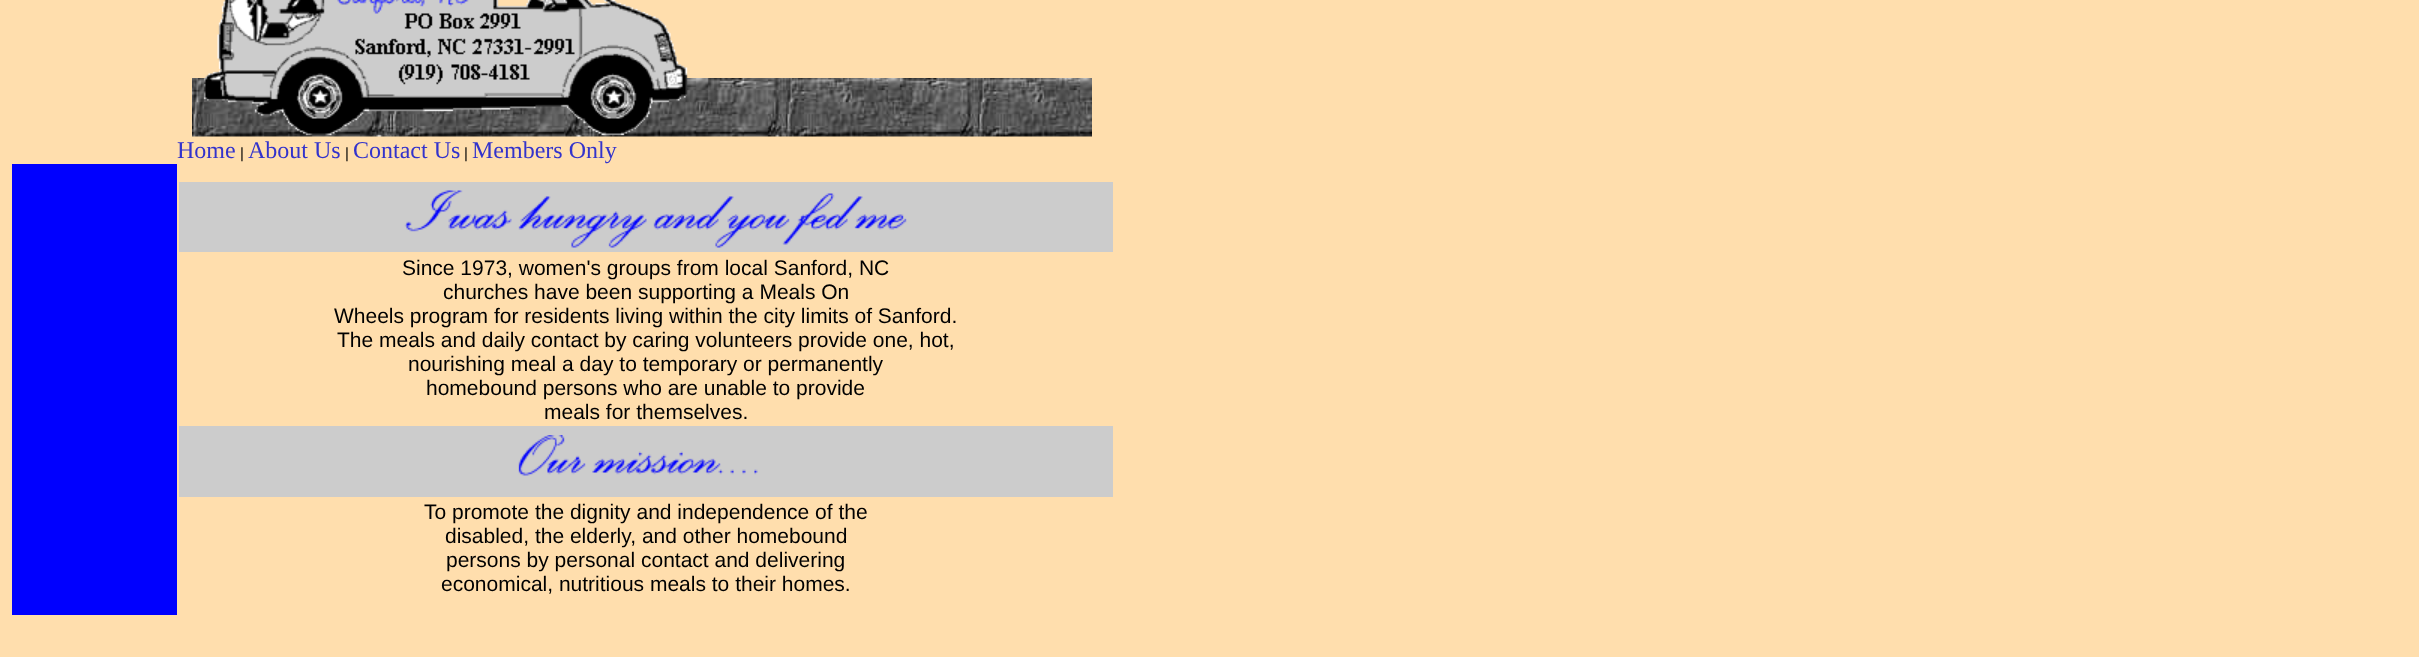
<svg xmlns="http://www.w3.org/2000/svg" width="2419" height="657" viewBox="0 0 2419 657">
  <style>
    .t1 { font: 24px Liberation Serif; fill: #33c; }
    .t2 { font: 15px Liberation Sans; fill: #000; }
    .t3 { font: 21px Liberation Sans; fill: #000; }
  </style>
  <rect width="100%" height="100%" fill="#ffdead"/>
  <image x="192" y="78" width="900" height="59" href="images/2.png"/>
  <image x="203" y="0" width="485" height="136" href="images/1.png"/>
  <text x="177" y="158" class="t1">Home</text>
  <text x="240" y="158" class="t2">|</text>
  <text x="248" y="158" class="t1">About Us</text>
  <text x="345" y="158" class="t2">|</text>
  <text x="353" y="158" class="t1">Contact Us</text>
  <text x="464" y="158" class="t2">|</text>
  <text x="472" y="158" class="t1">Members Only</text>
  <rect x="12" y="164" width="165" height="451" fill="#00f"/>
  <rect x="179" y="182" width="934" height="70" fill="#ccc"/>
  <image x="404" y="190" width="503" height="58" href="images/3.png"/>
  <text x="402" y="275" class="t3">Since 1973, women's groups from local Sanford, NC</text>
  <text x="443" y="299" class="t3">churches have been supporting a Meals On</text>
  <text x="334" y="323" class="t3">Wheels program for residents living within the city limits of Sanford.</text>
  <text x="337" y="347" class="t3">The meals and daily contact by caring volunteers provide one, hot,</text>
  <text x="408" y="371" class="t3">nourishing meal a day to temporary or permanently</text>
  <text x="426" y="395" class="t3">homebound persons who are unable to provide</text>
  <text x="544" y="419" class="t3">meals for themselves.</text>
  <rect x="179" y="426" width="934" height="71" fill="#ccc"/>
  <image x="518" y="435" width="240" height="41" href="images/4.png"/>
  <text x="424" y="519" class="t3">To promote the dignity and independence of the</text>
  <text x="445" y="543" class="t3">disabled, the elderly, and other homebound</text>
  <text x="446" y="567" class="t3">persons by personal contact and delivering</text>
  <text x="441" y="591" class="t3">economical, nutritious meals to their homes.</text>
</svg>
